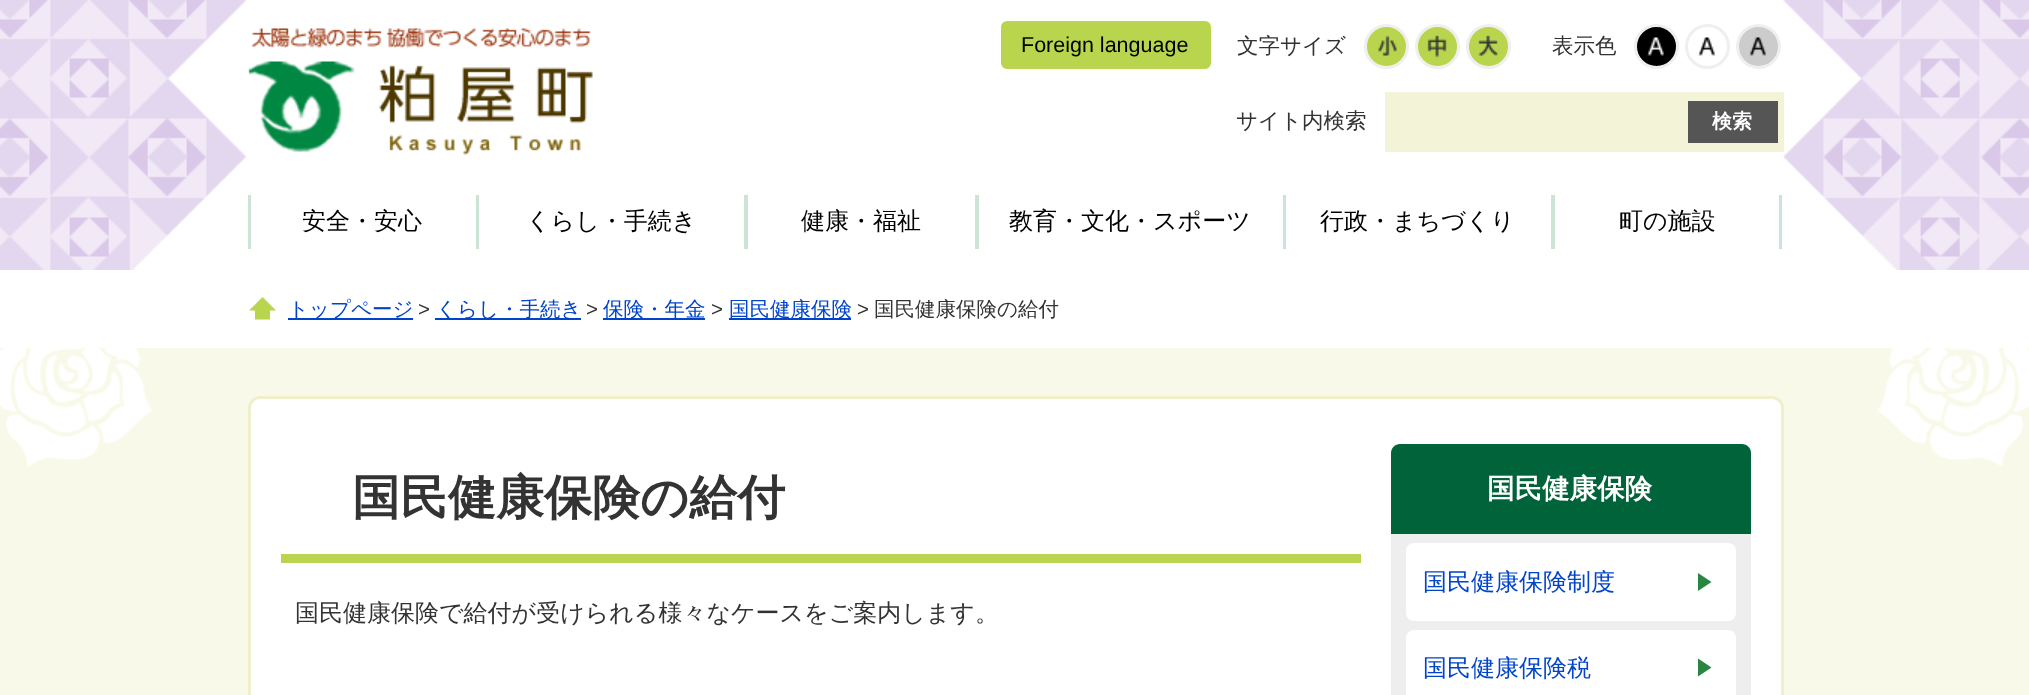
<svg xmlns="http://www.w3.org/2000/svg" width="2029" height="695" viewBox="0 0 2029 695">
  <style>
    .t1 { font: 21.5px Liberation Sans; fill: #000; }
    .t2 { font: 500 21.5px WenQuanYi Zen Hei; fill: #333; }
    .t3 { font: bold 20px WenQuanYi Zen Hei; fill: #fff; }
    .t4 { font: 500 24px WenQuanYi Zen Hei; fill: #000; }
    .t5 { font: 500 20.5px WenQuanYi Zen Hei; fill: #04c; }
    .t6 { font: 20.5px Liberation Sans; fill: #333; }
    .t7 { font: 500 20.5px WenQuanYi Zen Hei; fill: #333; }
    .t8 { font: bold 48px WenQuanYi Zen Hei; fill: #333; }
    .t9 { font: 500 24px WenQuanYi Zen Hei; fill: #333; }
    .t10 { font: bold 27.5px WenQuanYi Zen Hei; fill: #fff; }
    .t11 { font: 500 24px WenQuanYi Zen Hei; fill: #04c; }
  </style>
  <rect width="100%" height="100%" fill="#fff"/>
  <image x="0" y="0" width="2029" height="270" href="images/1.png"/>
  <image x="248" y="28" width="345" height="127" href="images/2.png"/>
  <rect x="1002.5" y="22.5" width="207" height="45" rx="4.5" fill="#b9d54d" stroke="#b9d54d" stroke-width="3"/>
  <text x="1021" y="52" class="t1">Foreign language</text>
  <text x="1237" y="53" class="t2">文字サイズ</text>
  <circle cx="1386.5" cy="46.5" r="21" fill="#b9d54d" stroke="#f0efee" stroke-width="3"/>
  <image x="1378" y="35" width="19" height="21" href="images/3.png"/>
  <circle cx="1437.5" cy="46.5" r="21" fill="#b9d54d" stroke="#f0efee" stroke-width="3"/>
  <image x="1427" y="35" width="20" height="23" href="images/4.png"/>
  <circle cx="1488.5" cy="46.5" r="21" fill="#b9d54d" stroke="#f0efee" stroke-width="3"/>
  <image x="1478" y="35" width="21" height="22" href="images/5.png"/>
  <text x="1552" y="53" class="t2">表示色</text>
  <circle cx="1656.5" cy="46.5" r="21" fill="#000" stroke="#f0efee" stroke-width="3"/>
  <image x="1647" y="37" width="17" height="19" href="images/6.png"/>
  <circle cx="1707.5" cy="46.5" r="21" fill="none" stroke="#f0efee" stroke-width="3"/>
  <image x="1698" y="37" width="18" height="19" href="images/7.png"/>
  <circle cx="1758.5" cy="46.5" r="21" fill="#ccc" stroke="#f0efee" stroke-width="3"/>
  <image x="1749" y="37" width="18" height="19" href="images/8.png"/>
  <text x="1236" y="128" class="t2">サイト内検索</text>
  <rect x="1385" y="92" width="399" height="60" fill="#f3f3d8"/>
  <rect x="1688" y="101" width="90" height="42" fill="#555"/>
  <text x="1712" y="128" class="t3">検索</text>
  <rect x="248" y="195" width="3" height="54" fill="#cce4d5"/>
  <text x="302" y="229" class="t4">安全・安心</text>
  <rect x="476" y="195" width="3" height="54" fill="#cce4d5"/>
  <text x="526" y="229" class="t4">くらし・手続き</text>
  <rect x="744" y="195" width="4" height="54" fill="#cce4d5"/>
  <text x="801" y="229" class="t4">健康・福祉</text>
  <rect x="975" y="195" width="4" height="54" fill="#cce4d5"/>
  <text x="1009" y="229" class="t4">教育・文化・スポーツ</text>
  <rect x="1283" y="195" width="3" height="54" fill="#cce4d5"/>
  <text x="1320" y="229" class="t4">行政・まちづくり</text>
  <rect x="1551" y="195" width="4" height="54" fill="#cce4d5"/>
  <text x="1619" y="229" class="t4">町の施設</text>
  <rect x="1779" y="195" width="3" height="54" fill="#cce4d5"/>
  <rect x="0" y="348" width="2029" height="347" fill="#f9f9ea"/>
  <image x="0" y="348" width="2029" height="119" href="images/9.png"/>
  <image x="249" y="297" width="27" height="23" href="images/10.png"/>
  <rect x="288" y="318" width="125" height="2" fill="#04c"/>
  <text x="288" y="316" class="t5">トップページ</text>
  <text x="418" y="316" class="t6">&gt;</text>
  <rect x="435" y="318" width="146" height="2" fill="#04c"/>
  <text x="436" y="316" class="t5">くらし・手続き</text>
  <text x="586" y="316" class="t6">&gt;</text>
  <rect x="603" y="318" width="102" height="2" fill="#04c"/>
  <text x="603" y="316" class="t5">保険・年金</text>
  <text x="711" y="316" class="t6">&gt;</text>
  <rect x="729" y="318" width="122" height="2" fill="#04c"/>
  <text x="729" y="316" class="t5">国民健康保険</text>
  <text x="857" y="316" class="t6">&gt;</text>
  <text x="874" y="316" class="t7">国民健康保険の給付</text>
  <rect x="249.5" y="397.5" width="1533" height="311" rx="10.5" fill="#fff" stroke="#efefc9" stroke-width="3"/>
  <rect x="281" y="554" width="1080" height="9" fill="#bbd450"/>
  <text x="352" y="514" class="t8">国民健康保険の給付</text>
  <text x="295" y="621" class="t9">国民健康保険で給付が受けられる様々なケースをご案内します。</text>
  <path d="M1400 444H1742C1747 444 1751 448 1751 453V534H1391V453C1391 448 1395 444 1400 444Z" fill="#00633a"/>
  <text x="1487" y="498" class="t10">国民健康保険</text>
  <rect x="1391" y="534" width="360" height="161" fill="#eee"/>
  <rect x="1406" y="543" width="330" height="78" rx="8" fill="#fff"/>
  <text x="1423" y="590" class="t11">国民健康保険制度</text>
  <path d="M1698 591V573L1711.5 582Z" fill="#298642"/>
  <rect x="1406" y="630" width="330" height="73" rx="8" fill="#fff"/>
  <text x="1423" y="676" class="t11">国民健康保険税</text>
  <path d="M1698 676.5V658.5L1711.5 667.5Z" fill="#298642"/>
</svg>
